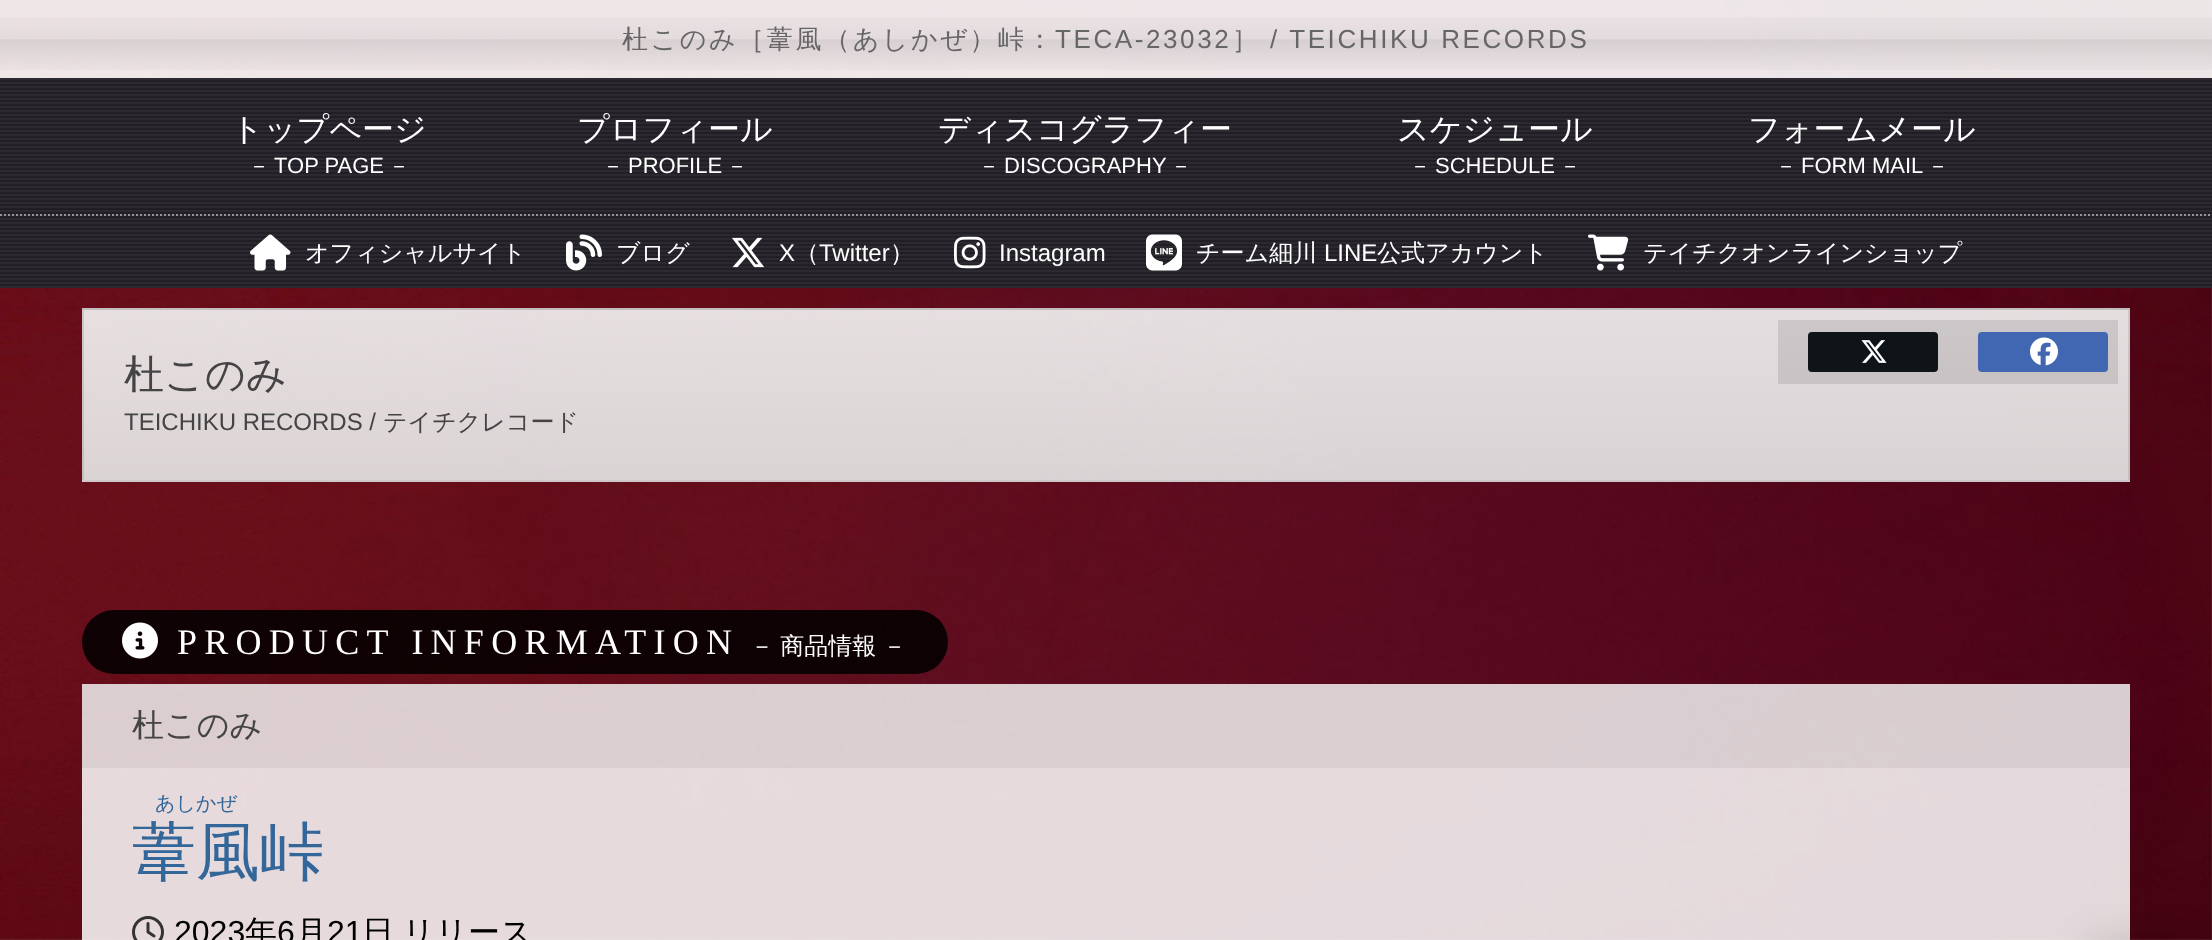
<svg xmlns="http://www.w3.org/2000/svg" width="2212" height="940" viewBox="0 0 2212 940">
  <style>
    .t1 { font: 500 26px WenQuanYi Zen Hei; letter-spacing: 2.6px; fill: #666; }
    .t2 { font: 26px Liberation Sans; letter-spacing: 2.6px; fill: #666; }
    .t3 { font: 500 32px WenQuanYi Zen Hei; fill: #fff; }
    .t4 { font: 500 22px WenQuanYi Zen Hei; fill: #fff; }
    .t5 { font: 22px Liberation Sans; fill: #fff; }
    .t6 { font: 500 24px WenQuanYi Zen Hei; fill: #fff; }
    .t7 { font: 24px Liberation Sans; fill: #fff; }
    .t8 { font: 500 40px WenQuanYi Zen Hei; fill: #444; }
    .t9 { font: 24px Liberation Sans; fill: #444; }
    .t10 { font: 500 24px WenQuanYi Zen Hei; fill: #444; }
    .t11 { font: 36px Liberation Serif; letter-spacing: 7.25px; fill: #fff; }
    .t12 { font: 500 32px WenQuanYi Zen Hei; fill: #444; }
    .t13 { font: 500 20px WenQuanYi Zen Hei; fill: #369; }
    .t14 { font: 500 64px WenQuanYi Zen Hei; fill: #369; }
    .t15 { font: 32px Liberation Sans; fill: #000; }
    .t16 { font: 500 32px WenQuanYi Zen Hei; fill: #000; }
  </style>
  <defs>
    <linearGradient id="g1" gradientUnits="userSpaceOnUse" x1="1106" y1="0" x2="1106" y2="78"><stop offset="0" stop-color="#000" stop-opacity="0"/><stop offset="0.5" stop-color="#000" stop-opacity="0.05"/><stop offset="0.51" stop-color="#000" stop-opacity="0.1"/><stop offset="1" stop-color="#000" stop-opacity="0"/></linearGradient>
    <linearGradient id="g2" gradientUnits="userSpaceOnUse" x1="1106" y1="310" x2="1106" y2="480"><stop offset="0" stop-color="#000" stop-opacity="0.05"/><stop offset="1" stop-color="#000" stop-opacity="0.1"/></linearGradient>
    <linearGradient id="g3" gradientUnits="userSpaceOnUse" x1="1106" y1="140" x2="1106" y2="310"><stop offset="0" stop-color="#e5dfe0"/><stop offset="1" stop-color="#d9d3d4"/></linearGradient>
    <linearGradient id="g4" gradientUnits="userSpaceOnUse" x1="1106" y1="480" x2="1106" y2="650"><stop offset="0" stop-color="#000" stop-opacity="0.05"/><stop offset="1" stop-color="#000" stop-opacity="0.1"/></linearGradient>
  </defs>
  <rect width="100%" height="100%" fill="#fff"/>
  <image x="0" y="0" width="2212" height="940" href="images/1.png"/>
  <rect x="0" y="0" width="2212" height="78" fill="#ffffffe6"/>
  <rect x="0" y="17" width="2212" height="53" fill="url(#g1)"/>
  <text x="622" y="48" class="t1">杜このみ［葦風（あしかぜ）峠：</text>
  <text x="1055" y="48" class="t2">TECA-23032</text>
  <text x="1232" y="48" class="t1">］</text>
  <text x="1270" y="48" class="t2">/ TEICHIKU RECORDS</text>
  <rect x="0" y="78" width="2212" height="210" fill="#211f25"/>
  <image x="0" y="78" width="2212" height="210" href="images/2.png"/>
  <text x="231" y="140" class="t3">トップページ</text>
  <text x="248" y="173" class="t4">－</text>
  <text x="274" y="173" class="t5">TOP PAGE</text>
  <text x="388" y="173" class="t4">－</text>
  <text x="577" y="140" class="t3">プロフィール</text>
  <text x="602" y="173" class="t4">－</text>
  <text x="628" y="173" class="t5">PROFILE</text>
  <text x="726" y="173" class="t4">－</text>
  <text x="938" y="140" class="t3">ディスコグラフィー</text>
  <text x="978" y="173" class="t4">－</text>
  <text x="1004" y="173" class="t5">DISCOGRAPHY</text>
  <text x="1170" y="173" class="t4">－</text>
  <text x="1397" y="140" class="t3">スケジュール</text>
  <text x="1409" y="173" class="t4">－</text>
  <text x="1435" y="173" class="t5">SCHEDULE</text>
  <text x="1559" y="173" class="t4">－</text>
  <text x="1748" y="140" class="t3">フォームメール</text>
  <text x="1775" y="173" class="t4">－</text>
  <text x="1801" y="173" class="t5">FORM MAIL</text>
  <text x="1927" y="173" class="t4">－</text>
  <path d="M0 215H2212" fill="none" stroke="#969598" stroke-width="2" stroke-dasharray="2 2"/>
  <image x="250" y="234" width="41" height="37" href="images/3.png"/>
  <text x="305" y="261" class="t6">オフィシャルサイト</text>
  <image x="566" y="234" width="36" height="37" href="images/4.png"/>
  <text x="616" y="261" class="t6">ブログ</text>
  <image x="732" y="237" width="33" height="31" href="images/5.png"/>
  <text x="779" y="261" class="t7">X</text>
  <text x="795" y="261" class="t6">（</text>
  <text x="819" y="261" class="t7">Twitter</text>
  <text x="890" y="261" class="t6">）</text>
  <image x="954" y="236" width="32" height="33" href="images/6.png"/>
  <text x="999" y="261" class="t7">Instagram</text>
  <image x="1146" y="234" width="36" height="37" href="images/7.png"/>
  <text x="1196" y="261" class="t6">チーム細川</text>
  <text x="1324" y="261" class="t7">LINE</text>
  <text x="1377" y="261" class="t6">公式アカウント</text>
  <image x="1588" y="234" width="41" height="37" href="images/8.png"/>
  <text x="1643" y="261" class="t6">テイチクオンラインショップ</text>
  <rect x="82" y="310" width="2048" height="172" fill="#ffffff94"/>
  <rect x="82" y="310" width="2048" height="172" fill="#ffffffcc"/>
  <rect x="82" y="310" width="2048" height="170" fill="url(#g2)"/>
  <rect x="82" y="308" width="2048" height="2" fill="url(#g3)"/>
  <rect x="82" y="480" width="2048" height="2" fill="url(#g4)"/>
  <rect x="83" y="309" width="2046" height="172" fill="none" stroke="#0000001a" stroke-width="2"/>
  <rect x="1778" y="320" width="340" height="64" fill="#0000001a"/>
  <rect x="1808" y="332" width="130" height="40" rx="4" fill="#0f1419"/>
  <image x="1861" y="340" width="26" height="23" href="images/9.png"/>
  <rect x="1978" y="332" width="130" height="40" rx="4" fill="#4267b2"/>
  <image x="2030" y="337" width="28" height="29" href="images/10.png"/>
  <text x="124" y="388" class="t8">杜このみ</text>
  <text x="124" y="430" class="t9">TEICHIKU RECORDS /</text>
  <text x="383" y="430" class="t10">テイチクレコード</text>
  <rect x="82" y="610" width="866" height="64" rx="32" fill="#000000d9"/>
  <image x="122" y="622" width="36" height="37" href="images/11.png"/>
  <text x="177" y="654" class="t11">PRODUCT INFORMATION</text>
  <text x="750" y="654" word-spacing="-1" class="t6">－ 商品情報 －</text>
  <rect x="82" y="684" width="2048" height="256" fill="#ffffffd9"/>
  <rect x="82" y="684" width="2048" height="84" fill="#0000000d"/>
  <text x="132" y="736" class="t12">杜このみ</text>
  <text x="155" y="810" class="t13">あしかぜ</text>
  <text x="132" y="874" class="t14">葦風峠</text>
  <image x="132" y="916" width="32" height="24" href="images/12.png"/>
  <text x="174" y="943" class="t15">2023</text>
  <text x="245" y="943" class="t16">年</text>
  <text x="277" y="943" class="t15">6</text>
  <text x="295" y="943" class="t16">月</text>
  <text x="327" y="943" class="t15">21</text>
  <text x="362" y="943" word-spacing="-1" class="t16">日 リリース</text>
  <rect x="2092" y="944" width="104" height="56" fill="#00000029" filter="blur(20px)"/>
</svg>
